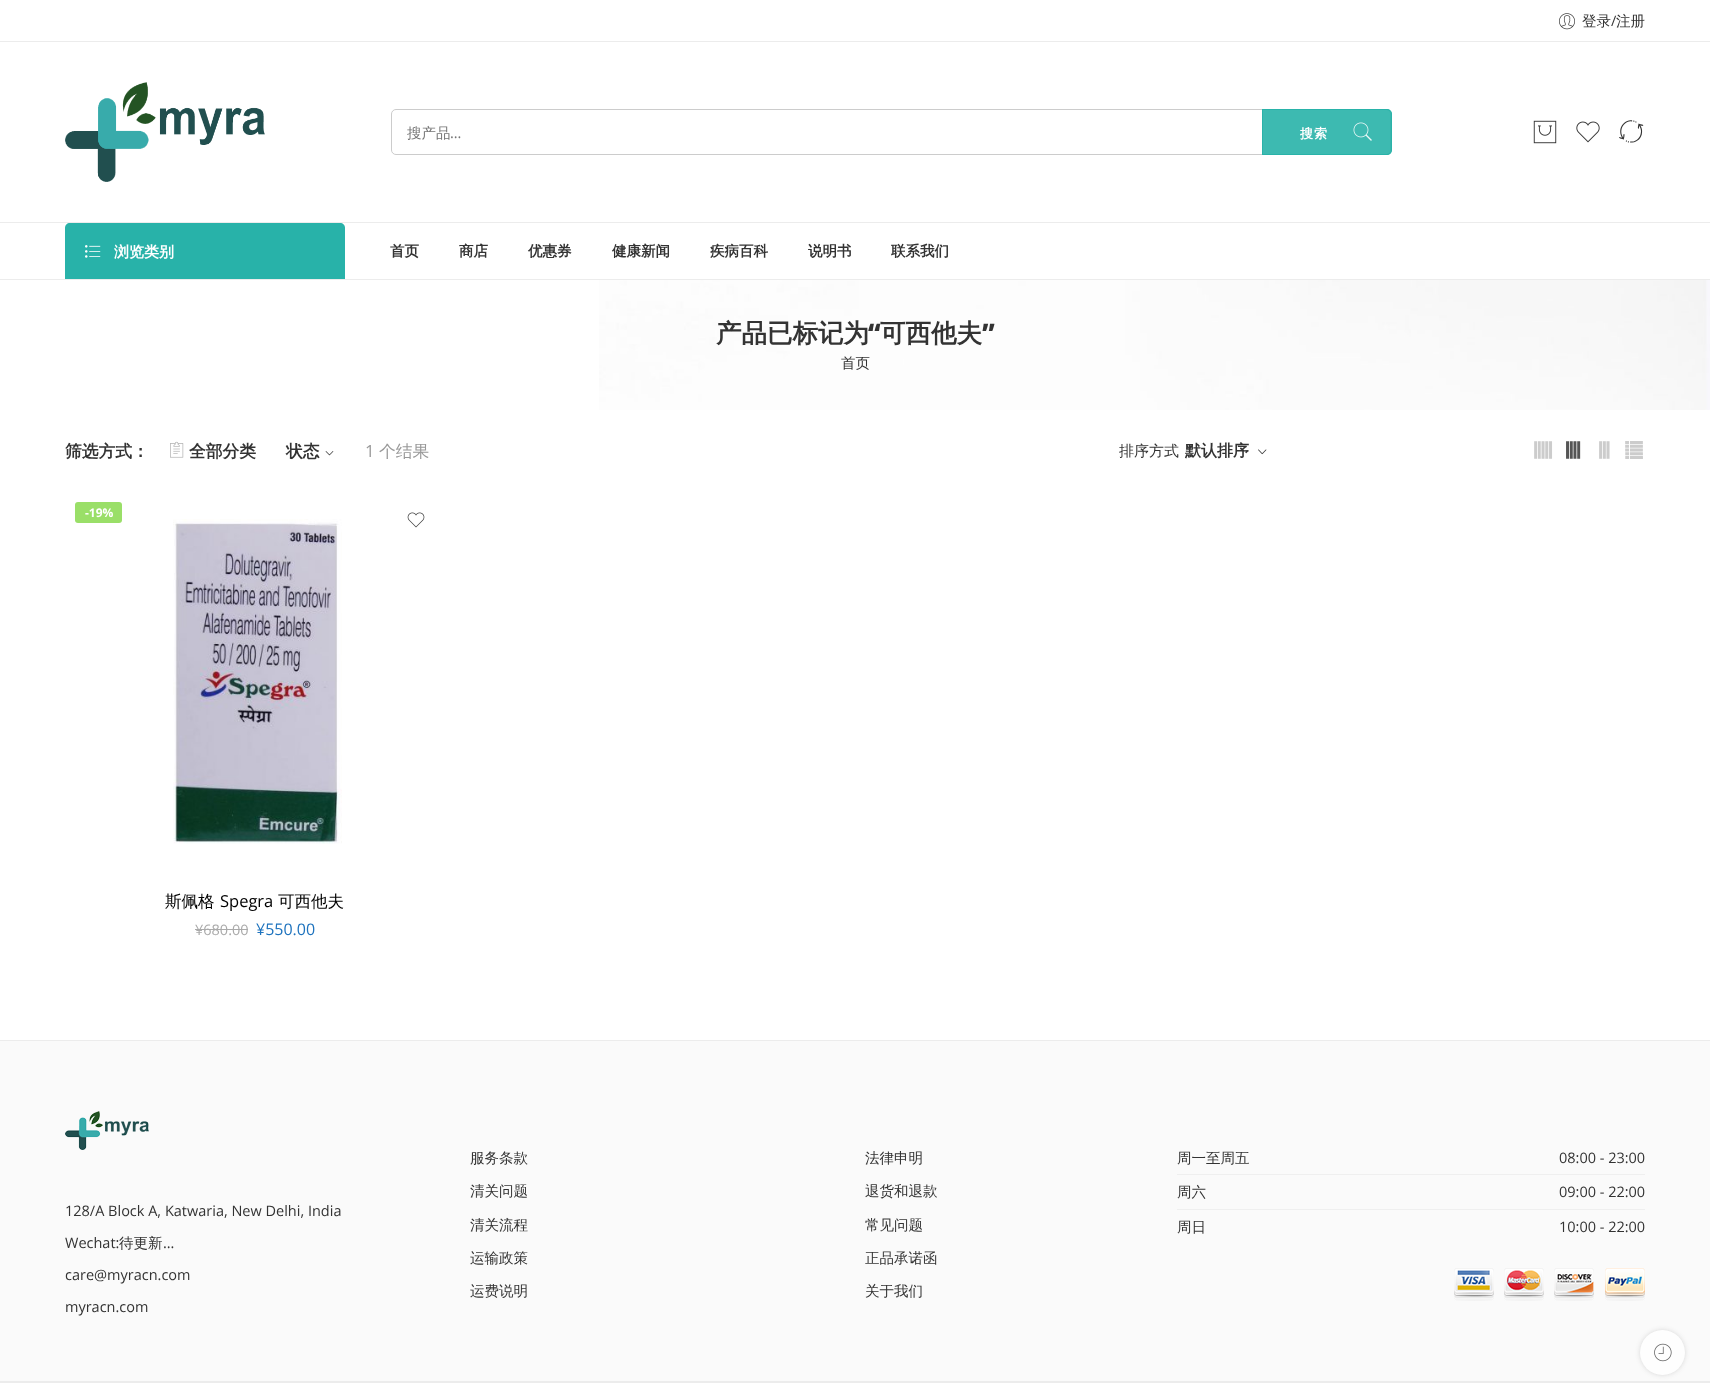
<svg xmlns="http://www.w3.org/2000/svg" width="1710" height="1400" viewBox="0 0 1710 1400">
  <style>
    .t1 { font: 500 14.5px WenQuanYi Zen Hei; fill: #333; }
    .t2 { font: 14.5px Open Sans; fill: #333; }
    .t3 { font: 500 14.5px WenQuanYi Zen Hei; fill: #757575; }
    .t4 { font: 14.5px Open Sans; fill: #757575; }
    .t5 { font: bold 13px WenQuanYi Zen Hei; letter-spacing: 1px; fill: #fff; }
    .t6 { font: 28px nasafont; fill: #333; }
    .t7 { font: bold 15px WenQuanYi Zen Hei; fill: #fff; }
    .t8 { font: bold 14.5px WenQuanYi Zen Hei; fill: #333; }
    .t9 { font: bold 25.5px WenQuanYi Zen Hei; fill: #333; }
    .t10 { font: 800 25.5px Open Sans; fill: #333; }
    .t11 { font: bold 16.75px WenQuanYi Zen Hei; fill: #333; }
    .t12 { font: 16.75px Open Sans; fill: #999; }
    .t13 { font: 500 16.75px WenQuanYi Zen Hei; fill: #999; }
    .t14 { font: 500 15px WenQuanYi Zen Hei; fill: #333; }
    .t15 { font: bold 16px WenQuanYi Zen Hei; fill: #333; }
    .t16 { font: 22px nasafont; fill: #ccc; }
    .t17 { font: 22px nasafont; fill: #555; }
    .t18 { font: bold 12px Open Sans; fill: #fff; }
    .t19 { font: 500 16.5px WenQuanYi Zen Hei; fill: #000; }
    .t20 { font: 16.5px Open Sans; fill: #000; }
    .t21 { font: 14.5px Open Sans; fill: #aaa; }
    .t22 { font: 16px Open Sans; fill: #1e73be; }
  </style>
  <defs>
    <clipPath id="clip1"><path d="M1262 109H1388C1390 109 1392 111 1392 113V151C1392 153 1390 155 1388 155H1262Z"/></clipPath>
  </defs>
  <rect width="100%" height="100%" fill="#fff"/>
  <rect x="0" y="41" width="1710" height="1" fill="#ececec"/>
  <image x="1559" y="13" width="16" height="17" href="images/1.png"/>
  <text x="1582" y="26" class="t1">登录</text>
  <text x="1611" y="26" class="t2">/</text>
  <text x="1616" y="26" class="t1">注册</text>
  <image x="65" y="82" width="200" height="100" href="images/2.png"/>
  <rect x="391.5" y="109.5" width="999" height="45" rx="4.5" fill="none" stroke="#ccc"/>
  <text x="407" y="138" class="t3">搜产品</text>
  <text x="450" y="138" class="t4">...</text>
  <g clip-path="url(#clip1)">
    <path d="M1262 109H1387C1390 109 1392 111 1392 114V150C1392 153 1390 155 1387 155H1262Z" fill="#28b2a9e6"/>
  </g>
  <path d="M1262.5 109.5H1387C1389.5 109.5 1391.5 111.5 1391.5 114V150C1391.5 152.5 1389.5 154.5 1387 154.5H1262.5Z" fill="none" stroke="#28b2a9e6"/>
  <text x="1300" y="138" class="t5">搜索</text>
  <image x="1353" y="122" width="19" height="19" href="images/3.png"/>
  <image x="1533" y="120" width="24" height="24" href="images/4.png"/>
  <image x="1576" y="121" width="24" height="22" href="images/5.png"/>
  <text x="1617" y="147" class="t6">3</text>
  <rect x="0" y="222" width="1710" height="1" fill="#ececec"/>
  <rect x="0" y="279" width="1710" height="1" fill="#ececec"/>
  <path d="M70 223H340C343 223 345 225 345 228V279H65V228C65 225 67 223 70 223Z" fill="#28b2a9"/>
  <image x="85" y="245" width="16" height="13" href="images/6.png"/>
  <text x="114" y="257" class="t7">浏览类别</text>
  <text x="390" y="256" class="t8">首页</text>
  <text x="459" y="256" class="t8">商店</text>
  <text x="528" y="256" class="t8">优惠券</text>
  <text x="612" y="256" class="t8">健康新闻</text>
  <text x="710" y="256" class="t8">疾病百科</text>
  <text x="808" y="256" class="t8">说明书</text>
  <text x="891" y="256" class="t8">联系我们</text>
  <image x="599" y="280" width="1111" height="130" href="images/7.png"/>
  <text x="716" y="342" class="t9">产品已标记为</text>
  <text x="868" y="342" class="t10">“</text>
  <text x="880" y="342" class="t9">可西他夫</text>
  <text x="982" y="342" class="t10">”</text>
  <text x="841" y="368" class="t1">首页</text>
  <text x="65" y="457" class="t11">筛选方式：</text>
  <image x="170" y="441" width="14" height="17" href="images/8.png"/>
  <text x="189" y="457" class="t11">全部分类</text>
  <text x="286" y="457" class="t11">状态</text>
  <image x="325" y="451" width="9" height="5" href="images/9.png"/>
  <text x="365" y="457" class="t12">1</text>
  <text x="379" y="457" class="t13">个结果</text>
  <text x="1119" y="456" class="t14">排序方式</text>
  <text x="1185" y="456" class="t15">默认排序</text>
  <image x="1258" y="449" width="9" height="6" href="images/10.png"/>
  <text x="1532" y="461" class="t16">!</text>
  <text x="1562" y="461" class="t17">9</text>
  <text x="1593" y="461" class="t16">8</text>
  <text x="1623" y="461" class="t16">#</text>
  <rect x="75" y="502" width="47" height="21" rx="3" fill="#9adf68"/>
  <text x="85" y="517" class="t18">-19%</text>
  <image x="173" y="519" width="169" height="325" href="images/11.png"/>
  <image x="407" y="512" width="18" height="16" href="images/12.png"/>
  <text x="165" y="907" class="t19">斯佩格</text>
  <text x="220" y="907" class="t20">Spegra</text>
  <text x="278" y="907" class="t19">可西他夫</text>
  <text x="195" y="935" class="t21">¥680.00</text>
  <rect x="195" y="929" width="53" height="1" fill="#aaa"/>
  <text x="256" y="935" class="t22">¥550.00</text>
  <rect x="0" y="1041" width="1710" height="340" fill="#fafafa"/>
  <rect x="0" y="1040" width="1710" height="1" fill="#ececec"/>
  <rect x="0" y="1381" width="1710" height="2" fill="#ececec"/>
  <image x="65" y="1111" width="84" height="39" href="images/13.png"/>
  <text x="65" y="1216" class="t2">128/A Block A, Katwaria, New Delhi, India</text>
  <text x="65" y="1248" class="t2">Wechat:</text>
  <text x="119" y="1248" class="t1">待更新</text>
  <text x="163" y="1248" class="t2">...</text>
  <text x="65" y="1280" class="t2">care@myracn.com</text>
  <text x="65" y="1312" class="t2">myracn.com</text>
  <text x="470" y="1163" class="t1">服务条款</text>
  <text x="470" y="1196" class="t1">清关问题</text>
  <text x="470" y="1230" class="t1">清关流程</text>
  <text x="470" y="1263" class="t1">运输政策</text>
  <text x="470" y="1296" class="t1">运费说明</text>
  <text x="865" y="1163" class="t1">法律申明</text>
  <text x="865" y="1196" class="t1">退货和退款</text>
  <text x="865" y="1230" class="t1">常见问题</text>
  <text x="865" y="1263" class="t1">正品承诺函</text>
  <text x="865" y="1296" class="t1">关于我们</text>
  <rect x="1177" y="1174" width="468" height="1" fill="#efefef"/>
  <text x="1177" y="1163" class="t1">周一至周五</text>
  <text x="1559" y="1163" class="t2">08:00 - 23:00</text>
  <rect x="1177" y="1209" width="468" height="1" fill="#efefef"/>
  <text x="1177" y="1197" class="t1">周六</text>
  <text x="1559" y="1197" class="t2">09:00 - 22:00</text>
  <text x="1177" y="1232" class="t1">周日</text>
  <text x="1559" y="1232" class="t2">10:00 - 22:00</text>
  <image x="1454" y="1268" width="191" height="33" href="images/14.png"/>
  <rect x="1640" y="1330" width="45" height="45" rx="22.5" fill="#3232322b" filter="blur(2.5px)"/>
  <circle cx="1662.5" cy="1352.5" r="22.5" fill="#fefefe"/>
  <image x="1654" y="1343" width="18" height="19" href="images/15.png"/>
</svg>
